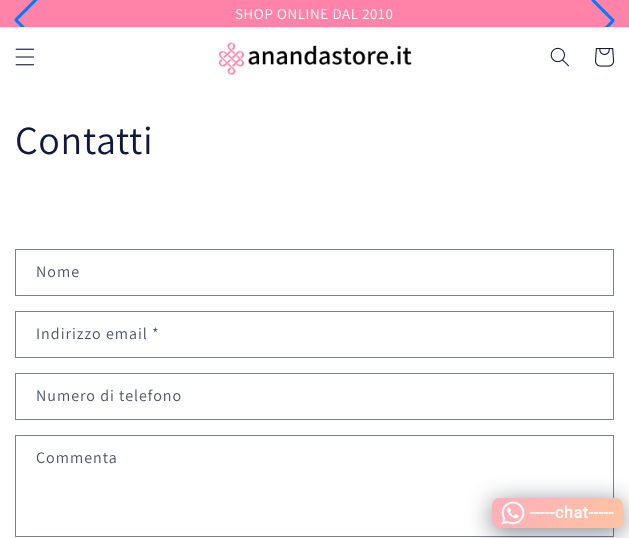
<svg xmlns="http://www.w3.org/2000/svg" width="629" height="538" viewBox="0 0 629 538">
  <style>
    .t1 { font: 15px Assistant; letter-spacing: 0.6px; fill: #fff; }
    .t2 { font: 40px Assistant; letter-spacing: 0.6px; fill: #10183e; }
    .t3 { font: 16px Assistant; letter-spacing: 1px; fill: #4c526e; }
    .t4 { font: bold 16px Roboto; letter-spacing: 0.6px; fill: #fff; }
  </style>
  <defs>
    <linearGradient id="g1" gradientUnits="userSpaceOnUse" x1="498" y1="485" x2="617" y2="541"><stop offset="0" stop-color="#ffafbd"/><stop offset="1" stop-color="#ffc3a0"/></linearGradient>
  </defs>
  <rect width="100%" height="100%" fill="#fff"/>
  <rect x="0" y="0" width="629" height="27" fill="#ff83a8"/>
  <image x="14" y="0" width="24" height="27" href="images/1.png"/>
  <text x="235" y="19" class="t1">SHOP ONLINE DAL 2010</text>
  <image x="591" y="0" width="24" height="27" href="images/2.png"/>
  <image x="15" y="48" width="20" height="18" href="images/3.png"/>
  <image x="218" y="42" width="194" height="33" href="images/4.png"/>
  <image x="550" y="47" width="19" height="20" href="images/5.png"/>
  <image x="595" y="48" width="20" height="19" href="images/6.png"/>
  <text x="15" y="154" class="t2">Contatti</text>
  <rect x="15.5" y="249.5" width="598" height="46" fill="none" stroke="#7c8095"/>
  <text x="36" y="277" class="t3">Nome</text>
  <rect x="15.5" y="311.5" width="598" height="46" fill="none" stroke="#7c8095"/>
  <text x="36" y="339" class="t3">Indirizzo email *</text>
  <rect x="15.5" y="373.5" width="598" height="46" fill="none" stroke="#7c8095"/>
  <text x="36" y="401" class="t3">Numero di telefono</text>
  <rect x="15.5" y="435.5" width="598" height="101" fill="none" stroke="#7c8095"/>
  <text x="36" y="463" class="t3">Commenta</text>
  <rect x="492" y="502" width="131" height="30" rx="7" fill="#02061080" filter="blur(12px)"/>
  <rect x="492" y="498" width="131" height="30" rx="7" fill="url(#g1)"/>
  <image x="501" y="501" width="24" height="24" href="images/7.png"/>
  <text x="530" y="518" class="t4">-----chat-----</text>
</svg>
